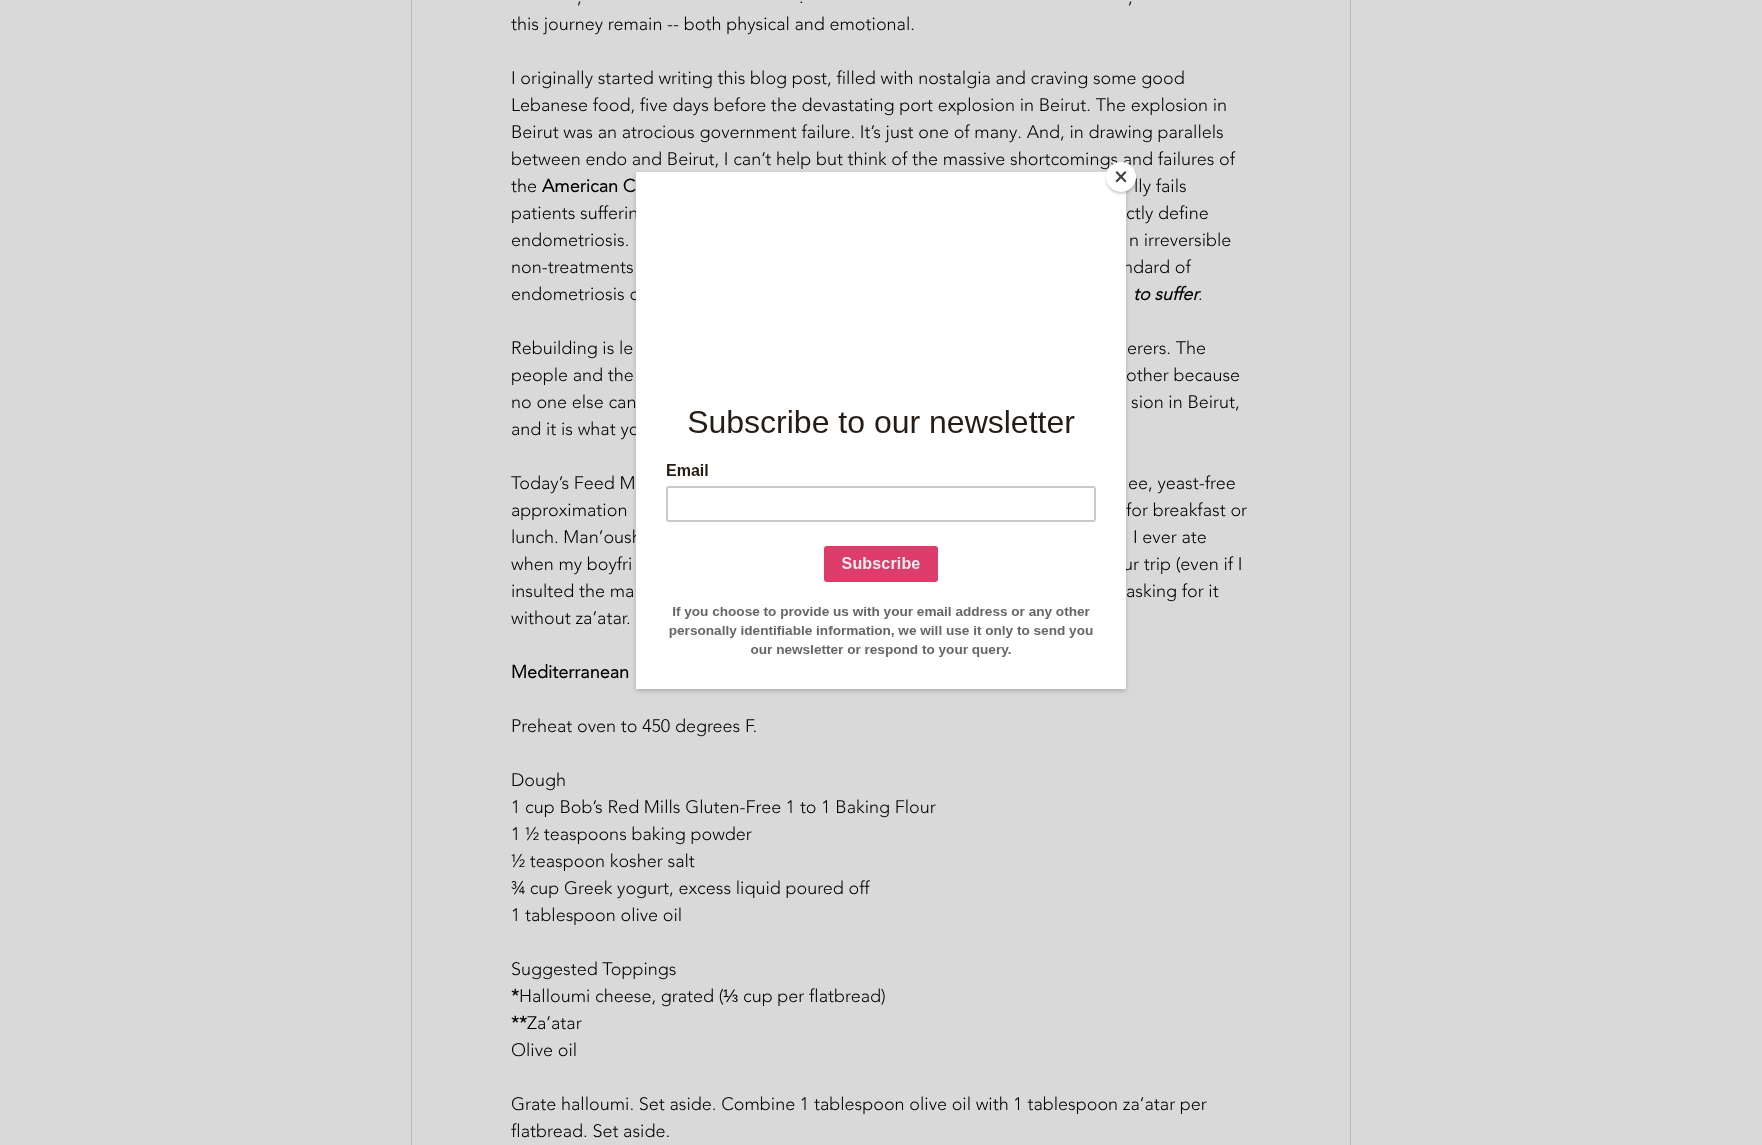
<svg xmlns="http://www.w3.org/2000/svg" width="1762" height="1145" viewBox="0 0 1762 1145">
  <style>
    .t1 { font: 300 18px 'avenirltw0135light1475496'; fill: #000; }
    .t2 { font: bold 18px 'avenirltw0135light1475496'; fill: #000; }
    .t3 { font: italic bold 18px 'avenirltw0135light1475496'; fill: #000; }
    .t4 { font: 18px Liberation Sans; fill: #000; }
  </style>
  <rect width="100%" height="100%" fill="#d9d9d9"/>
  <rect x="411.5" y="-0.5" width="939" height="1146" fill="none" stroke="#b8b8b8"/>
  <text x="577" y="3" class="t1">,</text>
  <text x="799" y="3" class="t1">.</text>
  <text x="1128" y="3" class="t1">,</text>
  <text x="511" y="30" class="t1">this journey remain -- both physical and emotional.</text>
  <text x="511" y="84" class="t1">I originally started writing this blog post, filled with nostalgia and craving some good</text>
  <text x="511" y="111" class="t1">Lebanese food, five days before the devastating port explosion in Beirut. The explosion in</text>
  <text x="511" y="138" class="t1">Beirut was an atrocious government failure. It’s just one of many. And, in drawing parallels</text>
  <text x="511" y="165" class="t1">between endo and Beirut, I can’t help but think of the massive shortcomings and failures of</text>
  <text x="511" y="192" class="t1">the</text>
  <text x="542" y="192" class="t2">American C</text>
  <text x="1134" y="192" class="t1">lly fails</text>
  <text x="511" y="219" class="t1">patients sufferin</text>
  <text x="1126" y="219" class="t1">ctly define</text>
  <text x="511" y="246" class="t1">endometriosis.</text>
  <text x="1129" y="246" class="t1">n irreversible</text>
  <text x="511" y="273" class="t1">non-treatments</text>
  <text x="1123" y="273" class="t1">ndard of</text>
  <text x="511" y="300" class="t1">endometriosis c</text>
  <text x="1133" y="300" class="t3">to suffer</text>
  <text x="1198" y="300" class="t1">.</text>
  <text x="511" y="354" class="t1">Rebuilding is le</text>
  <text x="1127" y="354" class="t1">erers. The</text>
  <text x="511" y="381" class="t1">people and the</text>
  <text x="1126" y="381" class="t1">other because</text>
  <text x="511" y="408" class="t1">no one else can</text>
  <text x="1131" y="408" class="t1">sion in Beirut,</text>
  <text x="511" y="435" class="t1">and it is what yo</text>
  <text x="511" y="489" class="t1">Today’s Feed M</text>
  <text x="1128" y="489" class="t1">ee, yeast-free</text>
  <text x="511" y="516" class="t1">approximation</text>
  <text x="1126" y="516" class="t1">for breakfast or</text>
  <text x="511" y="543" class="t1">lunch. Man’oush</text>
  <text x="1133" y="543" class="t1">I ever ate</text>
  <text x="511" y="570" class="t1">when my boyfri</text>
  <text x="1123" y="570" class="t1">ur trip (even if I</text>
  <text x="511" y="597" class="t1">insulted the ma</text>
  <text x="1126" y="597" class="t1">asking for it</text>
  <text x="511" y="624" class="t1">without za’atar.</text>
  <text x="511" y="678" class="t2">Mediterranean</text>
  <text x="511" y="732" class="t1">Preheat oven to 450 degrees F.</text>
  <text x="511" y="786" class="t1">Dough</text>
  <text x="511" y="813" class="t1">1 cup Bob’s Red Mills Gluten-Free 1 to 1 Baking Flour</text>
  <text x="511" y="840" class="t1">1 ½ teaspoons baking powder</text>
  <text x="511" y="867" class="t1">½ teaspoon kosher salt</text>
  <text x="511" y="894" class="t1">¾ cup Greek yogurt, excess liquid poured off</text>
  <text x="511" y="921" class="t1">1 tablespoon olive oil</text>
  <text x="511" y="975" class="t1">Suggested Toppings</text>
  <text x="511" y="1002" class="t2">*</text>
  <text x="519" y="1002" class="t1">Halloumi cheese, grated (</text>
  <text x="723" y="1002" class="t4">⅓</text>
  <text x="743" y="1002" class="t1">cup per flatbread)</text>
  <text x="511" y="1029" class="t2">**</text>
  <text x="527" y="1029" class="t1">Za’atar</text>
  <text x="511" y="1056" class="t1">Olive oil</text>
  <text x="511" y="1110" class="t1">Grate halloumi. Set aside. Combine 1 tablespoon olive oil with 1 tablespoon za’atar per</text>
  <text x="511" y="1137" class="t1">flatbread. Set aside.</text>
  <rect x="636" y="174" width="490" height="517" fill="#00000033" filter="blur(2px)"/>
  <image x="636" y="172" width="490" height="517" href="images/1.png"/>
  <rect x="1106" y="164" width="30" height="30" rx="15" fill="#00000033" filter="blur(1px)"/>
  <circle cx="1121" cy="177" r="15" fill="#fff"/>
  <path d="M1125 171L1126.5 172.5L1117 182.5L1115.5 181Z" fill="#414141"/>
  <path d="M1115.5 172.5L1117 171L1126.5 181L1125 182.5Z" fill="#414141"/>
</svg>
